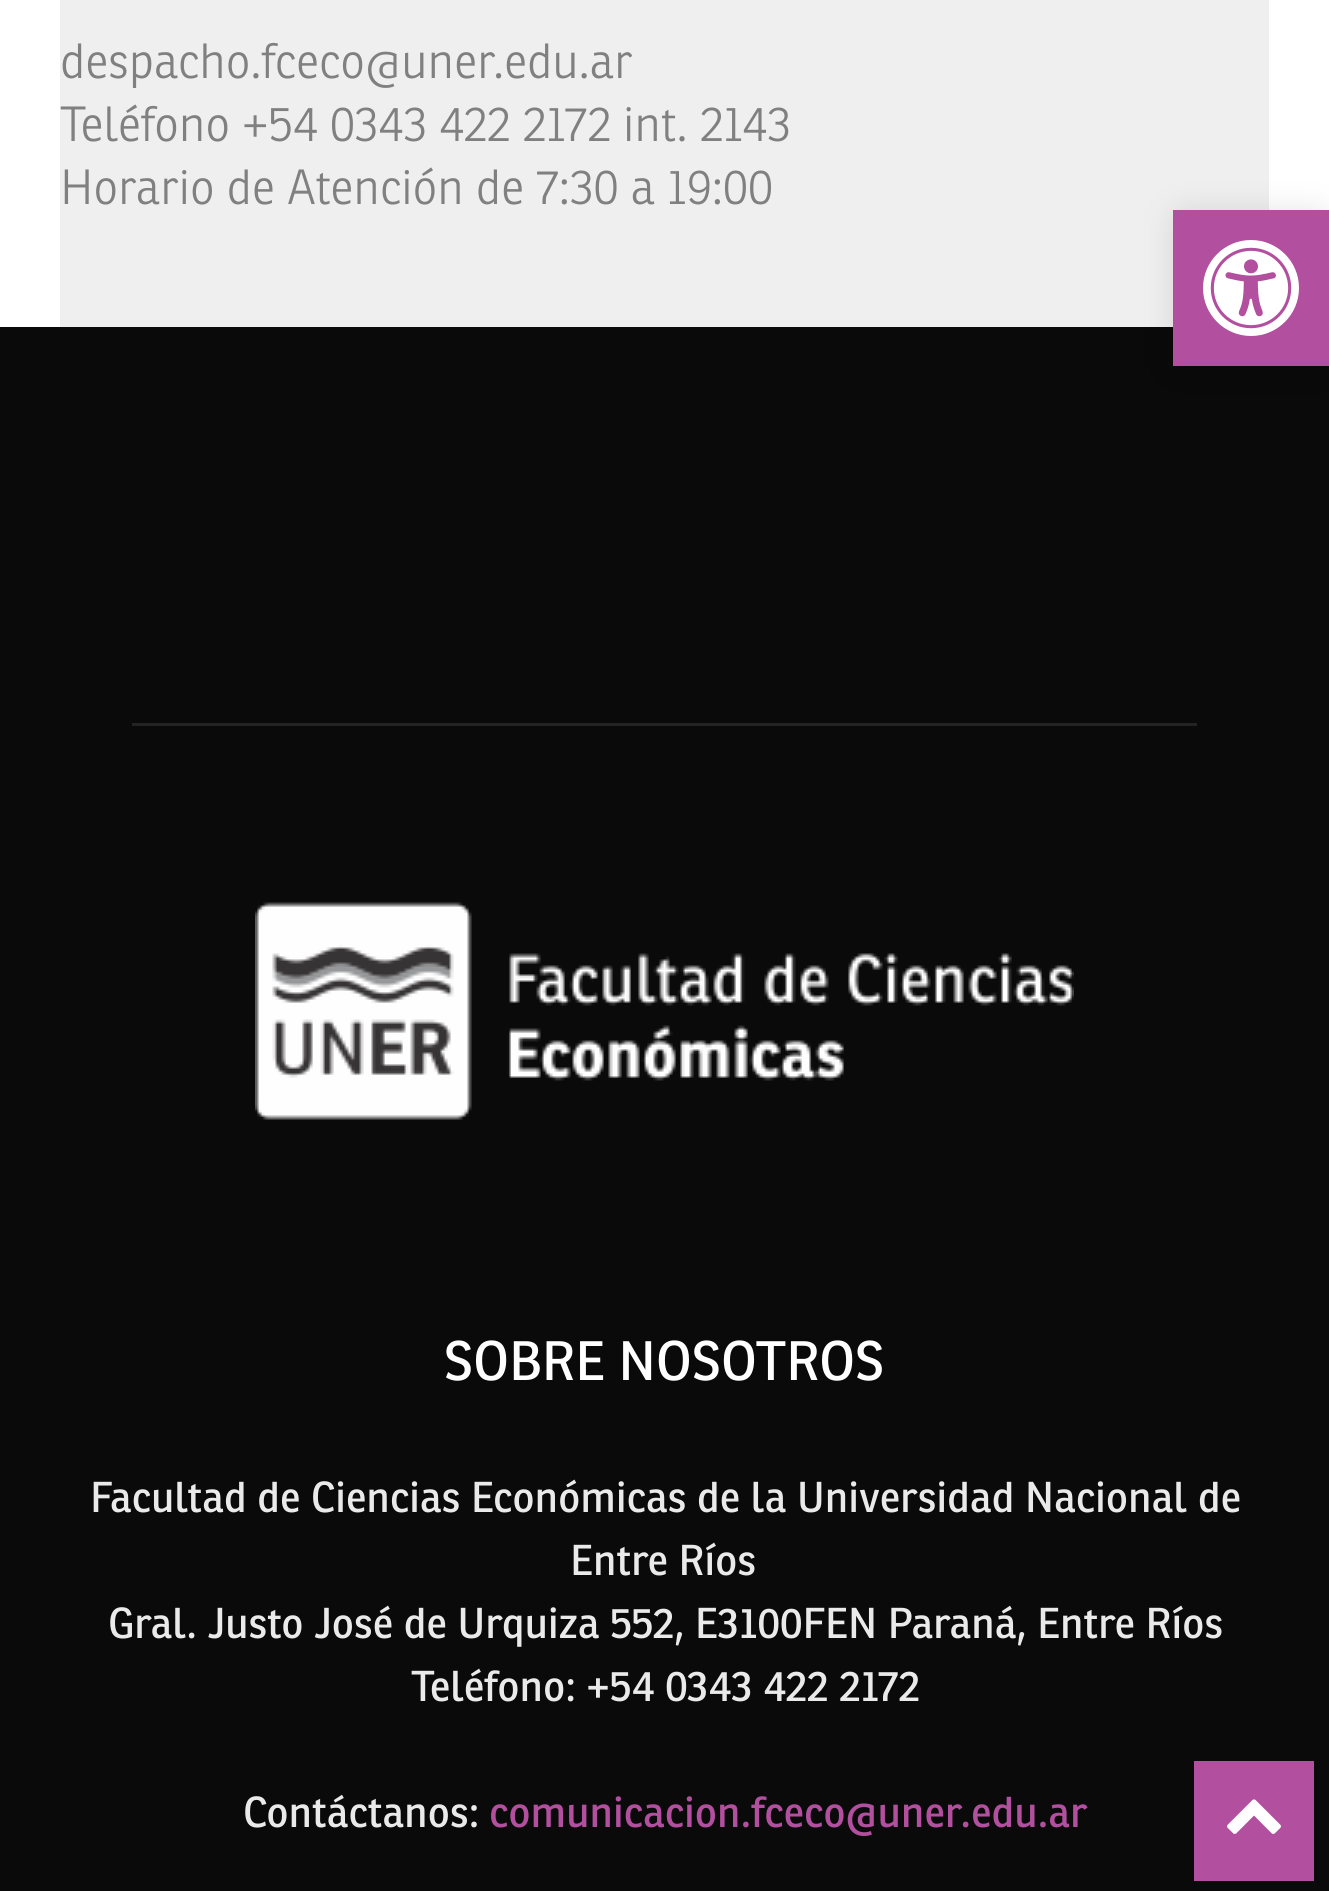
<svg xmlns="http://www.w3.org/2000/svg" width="1329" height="1891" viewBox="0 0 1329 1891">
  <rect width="100%" height="100%" fill="#fff"/>
  <rect x="60" y="0" width="1209" height="327" fill="#efefef"/>
  <image x="62" y="42" width="570" height="46" href="images/1.png"/>
  <image x="60" y="104" width="729" height="38" href="images/2.png"/>
  <image x="64" y="167" width="707" height="38" href="images/3.png"/>
  <rect x="0" y="327" width="1329" height="1564" fill="#0a0a0a"/>
  <rect x="132" y="723" width="1065" height="3" fill="#232323"/>
  <image x="255" y="902" width="819" height="218" href="images/4.png"/>
  <image x="446" y="1340" width="436" height="41" href="images/5.png"/>
  <image x="93" y="1479" width="1147" height="34" href="images/6.png"/>
  <image x="573" y="1542" width="182" height="34" href="images/7.png"/>
  <image x="110" y="1605" width="1112" height="42" href="images/8.png"/>
  <image x="411" y="1668" width="508" height="34" href="images/9.png"/>
  <image x="245" y="1794" width="232" height="34" href="images/10.png"/>
  <image x="491" y="1796" width="597" height="40" href="images/11.png"/>
  <rect x="1173" y="210" width="156" height="156" fill="#0000001a" filter="blur(15px)"/>
  <rect x="1173" y="210" width="156" height="156" fill="#b24f9f"/>
  <image x="1203" y="240" width="96" height="96" href="images/12.png"/>
  <rect x="1194" y="1761" width="120" height="120" fill="#b24f9f"/>
  <image x="1227" y="1799" width="54" height="35" href="images/13.png"/>
</svg>
